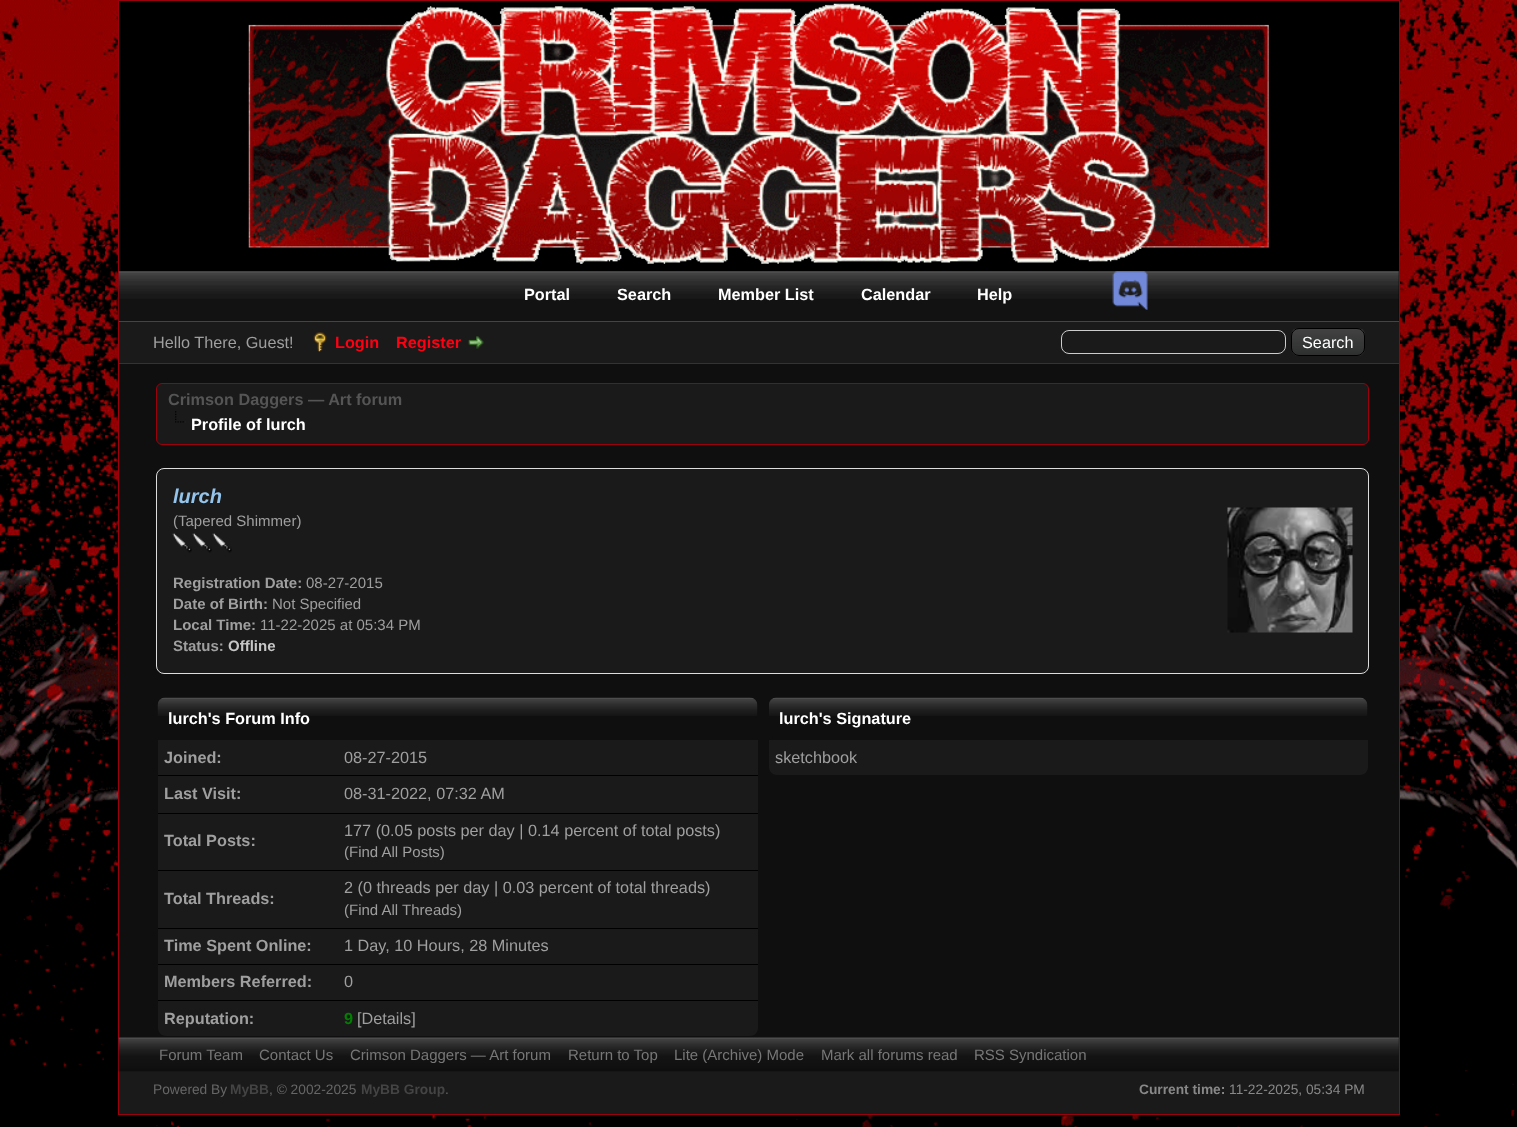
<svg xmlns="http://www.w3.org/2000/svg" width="1517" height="1127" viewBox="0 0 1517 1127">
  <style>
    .t1 { font: bold 16.25px Liberation Sans; fill: #fff; }
    .t2 { font: 16.25px Liberation Sans; fill: #9f9f9f; }
    .t3 { font: bold 16.25px Liberation Sans; fill: #ff0013; }
    .t4 { font: 16.25px Liberation Sans; fill: #fff; }
    .t5 { font: bold 16.25px Liberation Sans; fill: #555; }
    .t6 { font: italic bold 20px Liberation Sans; fill: #94c4ec; }
    .t7 { font: 15px Liberation Sans; fill: #9f9f9f; }
    .t8 { font: bold 15px Liberation Sans; fill: #9f9f9f; }
    .t9 { font: bold 15px Liberation Sans; fill: #c7c7c7; }
    .t10 { font: bold 16.25px Liberation Sans; fill: #9f9f9f; }
    .t11 { font: bold 16.25px Liberation Sans; fill: #008000; }
    .t12 { font: 15px Liberation Sans; fill: #777; }
    .t13 { font: 13.75px Liberation Sans; fill: #666; }
    .t14 { font: bold 13.75px Liberation Sans; fill: #444; }
    .t15 { font: bold 13.75px Liberation Sans; fill: #888; }
    .t16 { font: 13.75px Liberation Sans; fill: #888; }
  </style>
  <rect width="100%" height="100%" fill="#000"/>
  <image x="0" y="0" width="1517" height="1127" href="images/1.png"/>
  <rect x="118.5" y="0.5" width="1281" height="1114" fill="none" stroke="#9c000c"/>
  <rect x="119" y="1" width="1280" height="320" fill="#000"/>
  <image x="248" y="3" width="1021" height="261" href="images/2.png"/>
  <image x="118" y="271" width="1281" height="51" href="images/3.png"/>
  <text x="524" y="300" class="t1">Portal</text>
  <text x="617" y="300" class="t1">Search</text>
  <text x="718" y="300" class="t1">Member List</text>
  <text x="861" y="300" class="t1">Calendar</text>
  <text x="977" y="300" class="t1">Help</text>
  <image x="1112" y="271" width="36" height="39" href="images/4.png"/>
  <rect x="119" y="322" width="1280" height="41" fill="#1a1a1a"/>
  <rect x="119" y="321" width="1280" height="1" fill="#444"/>
  <rect x="119" y="363" width="1280" height="1" fill="#333"/>
  <text x="153" y="348" class="t2">Hello There, Guest!</text>
  <image x="313" y="332" width="14" height="20" href="images/5.png"/>
  <text x="335" y="348" class="t3">Login</text>
  <text x="396" y="348" class="t3">Register</text>
  <image x="468" y="336" width="16" height="13" href="images/6.png"/>
  <rect x="1061.5" y="330.5" width="224" height="23" rx="7.5" fill="none" stroke="#ccc"/>
  <image x="1291" y="328" width="74" height="28" href="images/7.png"/>
  <rect x="1291.5" y="328.5" width="73" height="27" rx="7.5" fill="none" stroke="#000"/>
  <text x="1302" y="348" class="t4">Search</text>
  <rect x="119" y="364" width="1280" height="674" fill="#0f0f0f"/>
  <rect x="156.5" y="383.5" width="1212" height="61" rx="5.5" fill="#1a1a1a" stroke="#9c000c"/>
  <text x="168" y="405" class="t5">Crimson Daggers — Art forum</text>
  <image x="175" y="411" width="11" height="12" href="images/8.png"/>
  <text x="191" y="430" class="t1">Profile of lurch</text>
  <rect x="156.5" y="468.5" width="1212" height="205" rx="7.5" fill="#1a1a1a" stroke="#ddd"/>
  <text x="173" y="503" class="t6">lurch</text>
  <text x="173" y="526" class="t7">(Tapered Shimmer)</text>
  <image x="172" y="533" width="20" height="20" href="images/9.png"/>
  <image x="192" y="533" width="20" height="20" href="images/9.png"/>
  <image x="212" y="533" width="20" height="20" href="images/9.png"/>
  <text x="173" y="588" class="t8">Registration Date:</text>
  <text x="306" y="588" class="t7">08-27-2015</text>
  <text x="173" y="609" class="t8">Date of Birth:</text>
  <text x="272" y="609" class="t7">Not Specified</text>
  <text x="173" y="630" class="t8">Local Time:</text>
  <text x="260" y="630" class="t7">11-22-2025 at 05:34 PM</text>
  <text x="173" y="651" class="t8">Status:</text>
  <text x="228" y="651" class="t9">Offline</text>
  <image x="1227" y="507" width="126" height="126" href="images/10.png"/>
  <image x="157" y="697" width="601" height="19" href="images/11.png"/>
  <text x="168" y="724" class="t1">lurch's Forum Info</text>
  <rect x="158" y="740" width="600" height="35" fill="#1a1a1a"/>
  <rect x="158" y="775" width="600" height="1" fill="#000"/>
  <text x="164" y="763" class="t10">Joined:</text>
  <text x="344" y="763" class="t2">08-27-2015</text>
  <rect x="158" y="776" width="600" height="37" fill="#1a1a1a"/>
  <rect x="158" y="813" width="600" height="1" fill="#000"/>
  <text x="164" y="799" class="t10">Last Visit:</text>
  <text x="344" y="799" class="t2">08-31-2022, 07:32 AM</text>
  <rect x="158" y="814" width="600" height="56" fill="#1a1a1a"/>
  <rect x="158" y="870" width="600" height="1" fill="#000"/>
  <text x="164" y="846" class="t10">Total Posts:</text>
  <text x="344" y="836" class="t2">177 (0.05 posts per day | 0.14 percent of total posts)</text>
  <text x="344" y="857" class="t7">(Find All Posts)</text>
  <rect x="158" y="871" width="600" height="57" fill="#1a1a1a"/>
  <rect x="158" y="928" width="600" height="1" fill="#000"/>
  <text x="164" y="904" class="t10">Total Threads:</text>
  <text x="344" y="893" class="t2">2 (0 threads per day | 0.03 percent of total threads)</text>
  <text x="344" y="915" class="t7">(Find All Threads)</text>
  <rect x="158" y="929" width="600" height="35" fill="#1a1a1a"/>
  <rect x="158" y="964" width="600" height="1" fill="#000"/>
  <text x="164" y="951" class="t10">Time Spent Online:</text>
  <text x="344" y="951" class="t2">1 Day, 10 Hours, 28 Minutes</text>
  <rect x="158" y="965" width="600" height="35" fill="#1a1a1a"/>
  <rect x="158" y="1000" width="600" height="1" fill="#000"/>
  <text x="164" y="987" class="t10">Members Referred:</text>
  <text x="344" y="987" class="t2">0</text>
  <path d="M158 1001H338V1036H166C161.5 1036 158 1032.5 158 1028Z" fill="#1a1a1a"/>
  <text x="164" y="1024" class="t10">Reputation:</text>
  <path d="M338 1001H758V1028C758 1032.5 754.5 1036 750 1036H338Z" fill="#1a1a1a"/>
  <text x="344" y="1024" class="t11">9</text>
  <text x="357" y="1024" class="t2">[Details]</text>
  <image x="769" y="697" width="599" height="19" href="images/12.png"/>
  <text x="779" y="724" class="t1">lurch's Signature</text>
  <path d="M769 740H1368V767C1368 771.5 1364.5 775 1360 775H777C772.5 775 769 771.5 769 767Z" fill="#1a1a1a"/>
  <text x="775" y="763" class="t2">sketchbook</text>
  <rect x="119" y="1038" width="1280" height="76" fill="#1a1a1a"/>
  <image x="118" y="1037" width="1281" height="35" href="images/13.png"/>
  <text x="159" y="1060" class="t12">Forum Team</text>
  <text x="259" y="1060" class="t12">Contact Us</text>
  <text x="350" y="1060" class="t12">Crimson Daggers — Art forum</text>
  <text x="568" y="1060" class="t12">Return to Top</text>
  <text x="674" y="1060" class="t12">Lite (Archive) Mode</text>
  <text x="821" y="1060" class="t12">Mark all forums read</text>
  <text x="974" y="1060" class="t12">RSS Syndication</text>
  <text x="153" y="1094" class="t13">Powered By</text>
  <text x="230" y="1094" class="t14">MyBB</text>
  <text x="269" y="1094" class="t13">, © 2002-2025</text>
  <text x="361" y="1094" class="t14">MyBB Group</text>
  <text x="445" y="1094" class="t13">.</text>
  <text x="1139" y="1094" class="t15">Current time:</text>
  <text x="1229" y="1094" class="t16">11-22-2025, 05:34 PM</text>
</svg>
